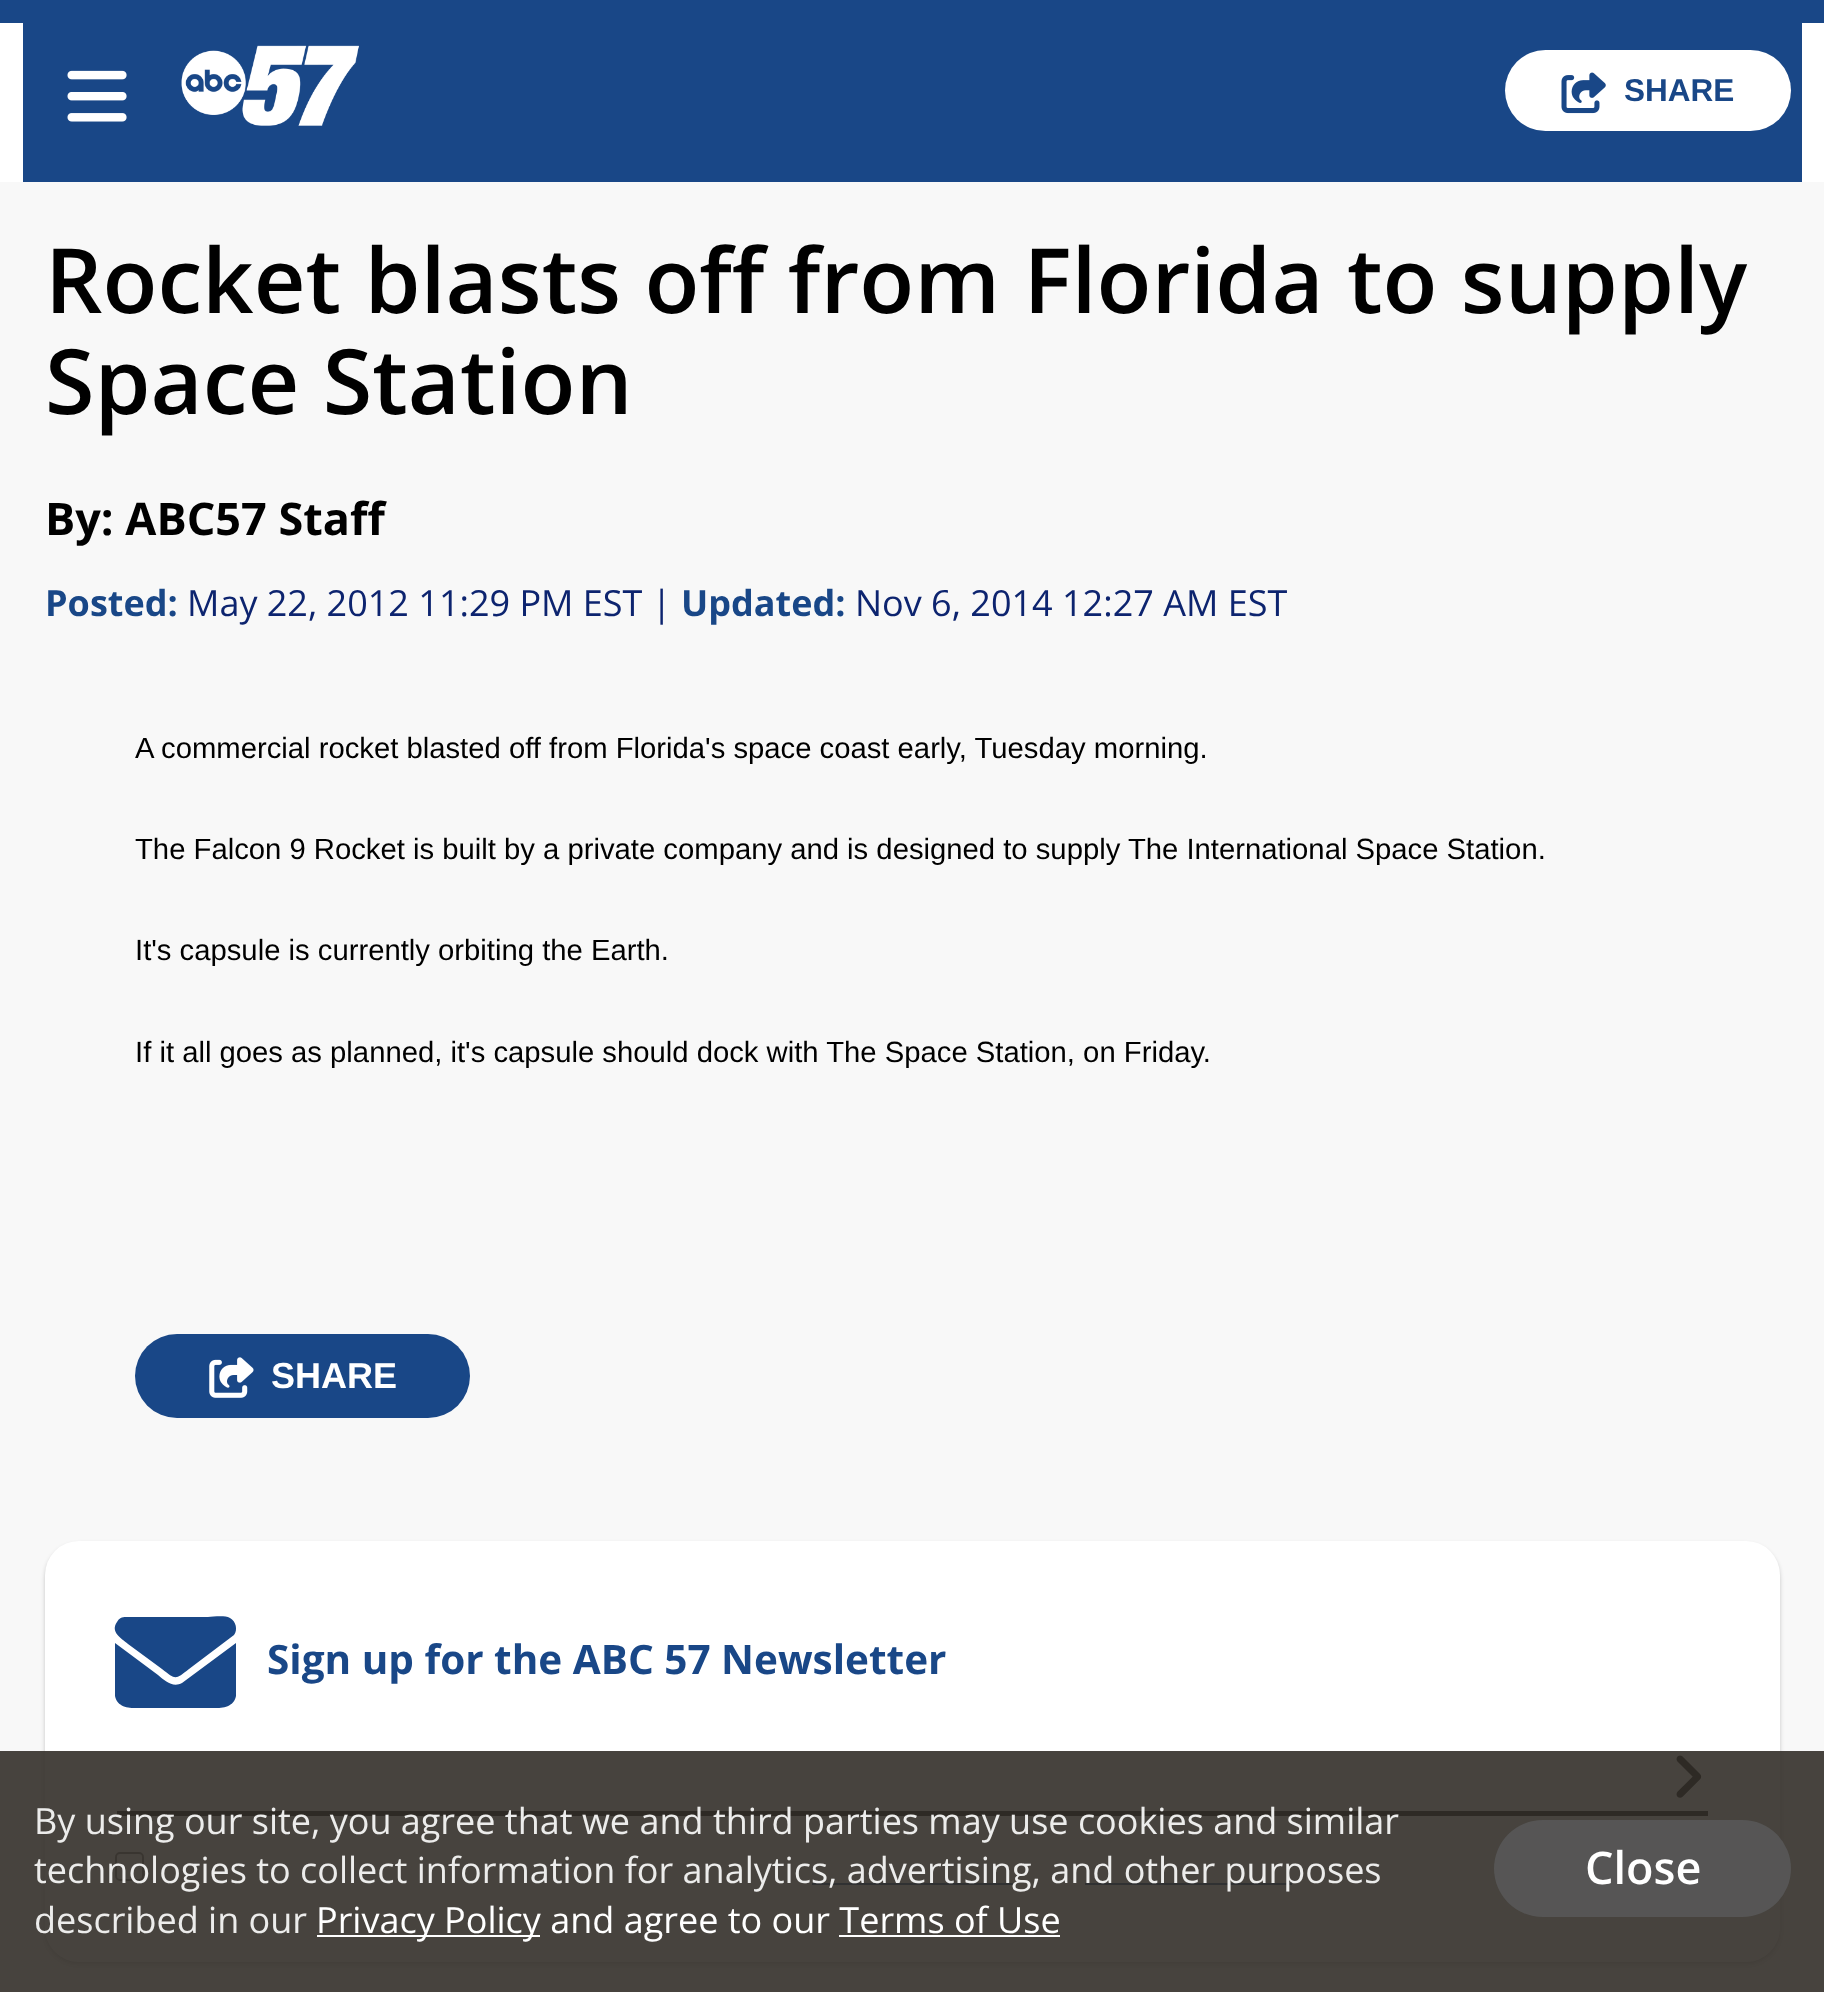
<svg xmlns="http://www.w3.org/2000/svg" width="1824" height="1992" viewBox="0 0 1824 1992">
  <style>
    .t1 { font: bold 31.5px Liberation Sans; fill: #194787; }
    .t2 { font: 600 90px Open Sans; fill: #000; }
    .t3 { font: bold 45px Open Sans; fill: #000; }
    .t4 { font: bold 36px Open Sans; fill: #194787; }
    .t5 { font: 36px Open Sans; fill: #0d246f; }
    .t6 { font: 29.25px Liberation Sans; fill: #000; }
    .t7 { font: bold 36px Liberation Sans; fill: #fff; }
    .t8 { font: bold 40.5px Open Sans; fill: #194787; }
    .t9 { font: 36px Open Sans; fill: #ececeb; }
    .t10 { font: 36px Open Sans; fill: #fff; }
    .t11 { font: 600 45px Open Sans; fill: #fff; }
  </style>
  <rect width="100%" height="100%" fill="#f8f8f8"/>
  <rect x="0" y="0" width="1824" height="23" fill="#194787"/>
  <rect x="0" y="23" width="1824" height="159" fill="#fff"/>
  <rect x="23" y="23" width="1779" height="159" fill="#194787"/>
  <image x="67" y="70" width="60" height="52" href="images/1.png"/>
  <image x="181" y="45" width="178" height="81" href="images/2.png"/>
  <rect x="1505" y="50" width="286" height="81" rx="40.5" fill="#fff"/>
  <image x="1561" y="72" width="45" height="42" href="images/3.png"/>
  <text x="1624" y="101" class="t1">SHARE</text>
  <text x="45" y="313" class="t2">Rocket blasts off from Florida to supply</text>
  <text x="45" y="414" class="t2">Space Station</text>
  <text x="45" y="535" class="t3">By: ABC57 Staff</text>
  <text x="45" y="616" class="t4">Posted:</text>
  <text x="187" y="616" class="t5">May 22, 2012 11:29 PM EST |</text>
  <text x="681" y="616" class="t4">Updated:</text>
  <text x="855" y="616" class="t5">Nov 6, 2014 12:27 AM EST</text>
  <text x="135" y="758" class="t6">A commercial rocket blasted off from Florida's space coast early, Tuesday morning.</text>
  <text x="135" y="859" class="t6">The Falcon 9 Rocket is built by a private company and is designed to supply The International Space Station.</text>
  <text x="135" y="960" class="t6">It's capsule is currently orbiting the Earth.</text>
  <text x="135" y="1062" class="t6">If it all goes as planned, it's capsule should dock with The Space Station, on Friday.</text>
  <rect x="135" y="1334" width="335" height="84" rx="42" fill="#194787"/>
  <image x="209" y="1357" width="45" height="41" href="images/4.png"/>
  <text x="271" y="1388" class="t7">SHARE</text>
  <rect x="45" y="1544" width="1735" height="420" rx="34" fill="#00000033" filter="blur(2px)"/>
  <rect x="45" y="1541" width="1735" height="421" rx="34" fill="#fff"/>
  <path d="M126 1617C122 1617 119 1618 117 1622C110 1632 121 1638 128 1644L162 1669C176 1680 175 1680 189 1669L234 1635C238 1630 236 1621 230 1618C224 1615 213 1617 208 1617ZM115 1643V1696C118 1710 134 1708 145 1708H206C217 1708 233 1710 236 1696V1643L182 1683C173 1688 165 1681 158 1675Z" fill="#194787"/>
  <text x="267" y="1674" class="t8">Sign up for the ABC 57 Newsletter</text>
  <rect x="117" y="1811" width="1591" height="5" fill="#000"/>
  <image x="1676" y="1755" width="26" height="43" href="images/5.png"/>
  <rect x="116" y="1853" width="27" height="27" rx="4" fill="none" stroke="#767676" stroke-width="2"/>
  <rect x="812" y="1883" width="201" height="2" fill="#194787"/>
  <rect x="1085" y="1883" width="207" height="2" fill="#194787"/>
  <rect x="0" y="1751" width="1824" height="241" fill="#332f29e6"/>
  <text x="34" y="1834" class="t9">By using our site, you agree that we and third parties may use cookies and similar</text>
  <text x="34" y="1883" class="t9">technologies to collect information for analytics, advertising, and other purposes</text>
  <text x="34" y="1933" class="t9">described in our</text>
  <rect x="317" y="1935" width="223" height="2" fill="#fff"/>
  <text x="316" y="1933" class="t10">Privacy Policy and agree to our Terms of Use</text>
  <rect x="839" y="1935" width="221" height="2" fill="#fff"/>
  <rect x="1494" y="1820" width="297" height="97" rx="48.5" fill="#585858e6"/>
  <text x="1585" y="1884" class="t11">Close</text>
</svg>
